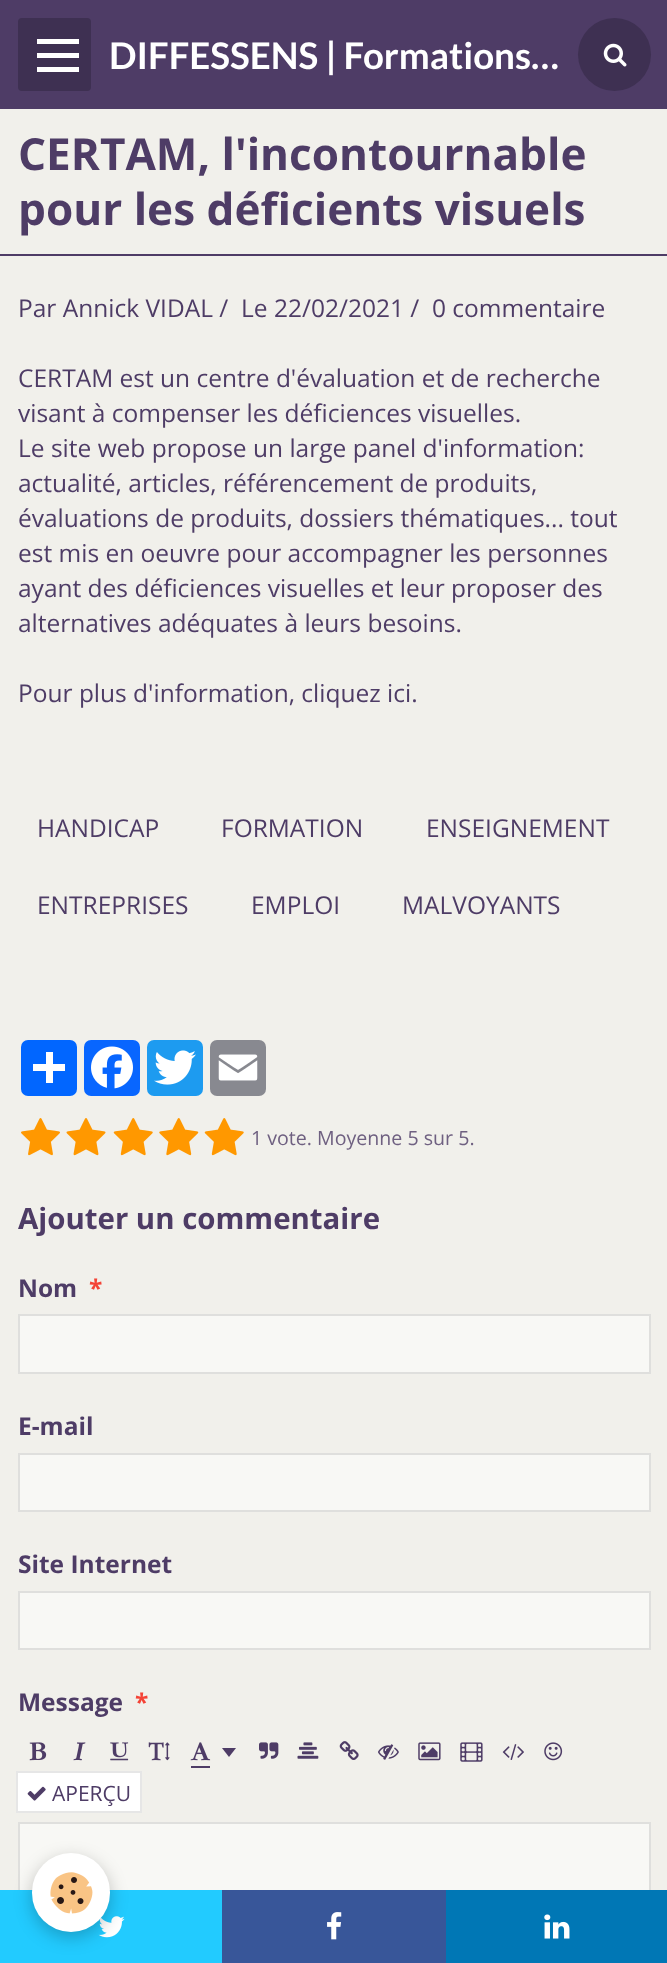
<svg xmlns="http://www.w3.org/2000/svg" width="667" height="1963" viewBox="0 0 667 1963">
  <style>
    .t1 { font: bold 36.75px Lato; fill: #fff; }
    .t2 { font: bold 44.1px Open Sans; fill: #4e3c66; }
    .t3 { font: 24.5px Open Sans; fill: #4e3c66; }
    .t4 { font: 19.6px Open Sans; fill: #6f6081; }
    .t5 { font: bold 29.4px Open Sans; fill: #4e3c66; }
    .t6 { font: bold 24.5px Open Sans; fill: #4e3c66; }
    .t7 { font: bold 24.5px Open Sans; fill: #f44336; }
    .t8 { font: 21px Open Sans; fill: #4e3c66; }
  </style>
  <rect width="100%" height="100%" fill="#f1f0eb"/>
  <rect x="0" y="0" width="667" height="109" fill="#4e3c66"/>
  <rect x="18" y="18" width="73" height="73" rx="4" fill="#3e3052"/>
  <rect x="37" y="53" width="42" height="5" fill="#fff"/>
  <rect x="37" y="39" width="42" height="5" fill="#fff"/>
  <rect x="37" y="67" width="42" height="5" fill="#fff"/>
  <text x="109" y="69" class="t1">DIFFESSENS | Formations…</text>
  <circle cx="614.5" cy="54.5" r="36.5" fill="#3e3052"/>
  <image x="603" y="43" width="24" height="24" href="images/1.png"/>
  <rect x="0" y="254" width="667" height="2" fill="#4e3c66"/>
  <text x="18" y="170" class="t2">CERTAM, l'incontournable</text>
  <text x="18" y="225" class="t2">pour les déficients visuels</text>
  <text x="18" y="317" class="t3">Par Annick VIDAL /</text>
  <text x="241" y="317" class="t3">Le 22/02/2021 /</text>
  <text x="432" y="317" class="t3">0 commentaire</text>
  <text x="18" y="387" class="t3">CERTAM est un centre d'évaluation et de recherche</text>
  <text x="18" y="422" class="t3">visant à compenser les déficiences visuelles.</text>
  <text x="18" y="457" class="t3">Le site web propose un large panel d'information:</text>
  <text x="18" y="492" class="t3">actualité, articles, référencement de produits,</text>
  <text x="18" y="527" class="t3">évaluations de produits, dossiers thématiques... tout</text>
  <text x="18" y="562" class="t3">est mis en oeuvre pour accompagner les personnes</text>
  <text x="18" y="597" class="t3">ayant des déficiences visuelles et leur proposer des</text>
  <text x="18" y="632" class="t3">alternatives adéquates à leurs besoins.</text>
  <text x="18" y="702" class="t3">Pour plus d'information, cliquez ici.</text>
  <text x="37" y="837" class="t3">HANDICAP</text>
  <text x="221" y="837" class="t3">FORMATION</text>
  <text x="426" y="837" class="t3">ENSEIGNEMENT</text>
  <text x="37" y="914" class="t3">ENTREPRISES</text>
  <text x="251" y="914" class="t3">EMPLOI</text>
  <text x="402" y="914" class="t3">MALVOYANTS</text>
  <rect x="21" y="1040" width="56" height="56" rx="7" fill="#0166ff"/>
  <rect x="46" y="1052" width="7" height="31" fill="#fff"/>
  <rect x="33" y="1064" width="32" height="7" fill="#fff"/>
  <rect x="84" y="1040" width="56" height="56" rx="7" fill="#0866ff"/>
  <image x="91" y="1046" width="42" height="43" href="images/2.png"/>
  <rect x="147" y="1040" width="56" height="56" rx="7" fill="#1d9bf0"/>
  <image x="154" y="1050" width="42" height="35" href="images/3.png"/>
  <rect x="210" y="1040" width="56" height="56" rx="7" fill="#888990"/>
  <image x="218" y="1054" width="40" height="27" href="images/4.png"/>
  <image x="21" y="1118" width="39" height="38" href="images/5.png"/>
  <image x="66" y="1118" width="40" height="38" href="images/6.png"/>
  <image x="113" y="1118" width="40" height="38" href="images/7.png"/>
  <image x="159" y="1118" width="40" height="38" href="images/8.png"/>
  <image x="204" y="1118" width="40" height="38" href="images/7.png"/>
  <text x="251" y="1145" class="t4">1 vote. Moyenne 5 sur 5.</text>
  <text x="18" y="1229" class="t5">Ajouter un commentaire</text>
  <text x="18" y="1297" class="t6">Nom</text>
  <text x="89" y="1297" class="t7">*</text>
  <rect x="19" y="1315" width="631" height="58" fill="#f8f8f5" stroke="#dfdfdd" stroke-width="2"/>
  <text x="18" y="1435" class="t6">E-mail</text>
  <rect x="19" y="1454" width="631" height="57" fill="#f8f8f5" stroke="#dfdfdd" stroke-width="2"/>
  <text x="18" y="1573" class="t6">Site Internet</text>
  <rect x="19" y="1592" width="631" height="57" fill="#f8f8f5" stroke="#dfdfdd" stroke-width="2"/>
  <text x="18" y="1711" class="t6">Message</text>
  <text x="135" y="1711" class="t7">*</text>
  <image x="29" y="1742" width="18" height="19" href="images/9.png"/>
  <image x="73" y="1742" width="13" height="19" href="images/10.png"/>
  <image x="110" y="1742" width="19" height="19" href="images/11.png"/>
  <image x="148" y="1742" width="22" height="19" href="images/12.png"/>
  <image x="190" y="1742" width="21" height="19" href="images/13.png"/>
  <rect x="191" y="1766" width="19" height="2" fill="#4e3c66"/>
  <path d="M222 1748H236L229 1757Z" fill="#4e3c66"/>
  <image x="259" y="1742" width="20" height="17" href="images/14.png"/>
  <image x="297" y="1742" width="22" height="17" href="images/15.png"/>
  <image x="339" y="1741" width="20" height="19" href="images/16.png"/>
  <image x="378" y="1744" width="21" height="16" href="images/17.png"/>
  <image x="418" y="1742" width="23" height="19" href="images/18.png"/>
  <image x="460" y="1742" width="23" height="20" href="images/19.png"/>
  <image x="502" y="1744" width="22" height="16" href="images/20.png"/>
  <image x="544" y="1742" width="19" height="19" href="images/21.png"/>
  <rect x="17" y="1772" width="124" height="40" fill="#fff" stroke="#e6e6e6" stroke-width="2"/>
  <image x="27" y="1786" width="19" height="15" href="images/22.png"/>
  <text x="52" y="1801" class="t8">APERÇU</text>
  <rect x="20" y="1824" width="629" height="66" fill="#f8f8f5"/>
  <rect x="19" y="1823" width="631" height="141" fill="none" stroke="#dfdfdd" stroke-width="2"/>
  <rect x="0" y="1890" width="222" height="73" fill="#22cbff"/>
  <image x="98" y="1916" width="27" height="22" href="images/24.png"/>
  <rect x="32" y="1859" width="78" height="78" rx="39" fill="#0000003d" filter="blur(9px)"/>
  <rect x="32" y="1853" width="78" height="79" rx="39" fill="#fff"/>
  <image x="50" y="1872" width="43" height="42" href="images/23.png"/>
  <rect x="222" y="1890" width="224" height="73" fill="#385699"/>
  <image x="327" y="1912" width="15" height="28" href="images/25.png"/>
  <rect x="446" y="1890" width="221" height="73" fill="#0077b5"/>
  <image x="544" y="1914" width="26" height="25" href="images/26.png"/>
</svg>
